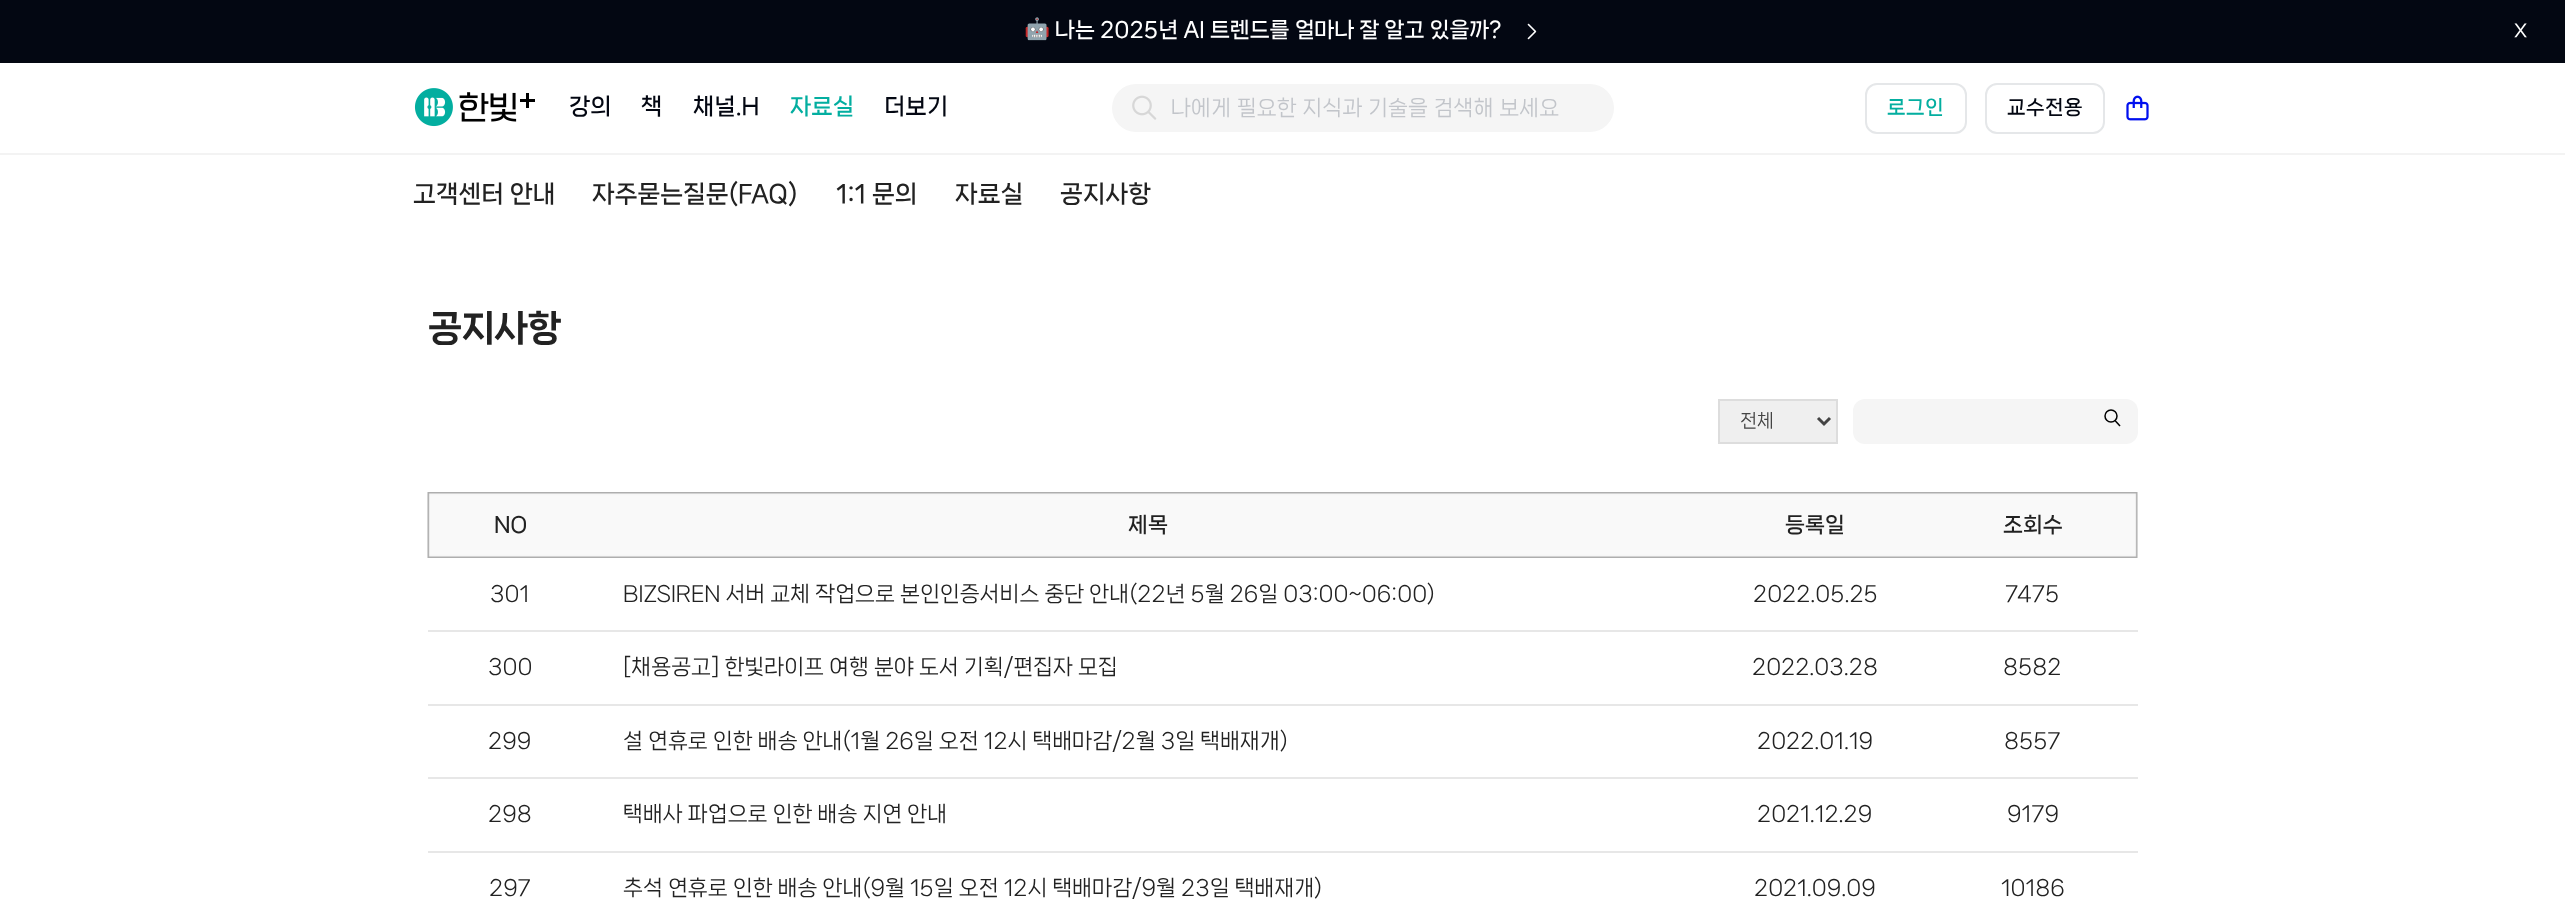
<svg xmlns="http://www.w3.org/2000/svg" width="2565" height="913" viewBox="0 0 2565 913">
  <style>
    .t1 { font: bold 21px Noto Color Emoji; fill: #fff; }
    .t2 { font: bold 21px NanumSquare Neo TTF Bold; fill: #fff; }
    .t3 { font: 24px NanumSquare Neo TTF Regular; fill: #fff; }
    .t4 { font: bold 22.5px NanumSquare Neo TTF Bold; fill: #030712; }
    .t5 { font: bold 22.5px NanumSquare Neo TTF Bold; fill: #03aea0; }
    .t6 { font: 21px NanumSquare Neo TTF Regular; letter-spacing: 0.2px; fill: #c2c5ca; }
    .t7 { font: bold 19.5px NanumSquare Neo TTF Bold; letter-spacing: 0.5px; fill: #03aea0; }
    .t8 { font: bold 19.5px NanumSquare Neo TTF Bold; letter-spacing: 0.5px; fill: #030712; }
    .t9 { font: bold 24px NanumSquare Neo TTF Bold; fill: #222; }
    .t10 { font: 800 36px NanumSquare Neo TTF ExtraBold; letter-spacing: -1px; fill: #222; }
    .t11 { font: 18px NanumSquare Neo TTF Regular; fill: #444; }
    .t12 { font: bold 21px NanumSquare Neo TTF Bold; fill: #222; }
    .t13 { font: 21px NanumSquare Neo TTF Regular; fill: #222; }
  </style>
  <rect width="100%" height="100%" fill="#fff"/>
  <rect x="0" y="0" width="2565" height="63" fill="#030712"/>
  <text x="1024" y="36" class="t1">🤖</text>
  <text x="1055" y="36" class="t2">나는 2025년 AI 트렌드를 얼마나 잘 알고 있을까?</text>
  <image x="1527" y="23" width="10" height="17" href="images/1.png"/>
  <text x="2514" y="35" class="t3">x</text>
  <image x="414" y="88" width="121" height="39" href="images/2.png"/>
  <text x="569" y="113" class="t4">강의</text>
  <text x="641" y="113" class="t4">책</text>
  <text x="693" y="113" class="t4">채널.H</text>
  <text x="790" y="113" class="t5">자료실</text>
  <text x="884" y="113" class="t4">더보기</text>
  <rect x="1112" y="84" width="502" height="48" rx="24" fill="#f5f5f5"/>
  <image x="1132" y="95" width="25" height="25" href="images/3.png"/>
  <text x="1171" y="114" class="t6">나에게 필요한 지식과 기술을 검색해 보세요</text>
  <rect x="1866" y="84" width="100" height="49" rx="11" fill="none" stroke="#e5e7e9" stroke-width="2"/>
  <text x="1887" y="113" class="t7">로그인</text>
  <rect x="1986" y="84" width="118" height="49" rx="11" fill="none" stroke="#e5e7e9" stroke-width="2"/>
  <text x="2007" y="113" class="t8">교수전용</text>
  <image x="2126" y="95" width="23" height="26" href="images/4.png"/>
  <text x="413" y="201" class="t9">고객센터 안내</text>
  <text x="592" y="201" class="t9">자주묻는질문(FAQ)</text>
  <text x="836" y="201" class="t9">1:1 문의</text>
  <text x="955" y="201" class="t9">자료실</text>
  <text x="1060" y="201" class="t9">공지사항</text>
  <rect x="0" y="153" width="2565" height="2" fill="#f3f3f3"/>
  <text x="428" y="339" class="t10">공지사항</text>
  <rect x="1719" y="400" width="118" height="43" fill="#efefef" stroke="#ddd" stroke-width="2"/>
  <path d="M1818 418L1824 424L1830 418" fill="none" stroke="#444" stroke-width="3"/>
  <text x="1740" y="426" class="t11">전체</text>
  <rect x="1853" y="399" width="285" height="45" rx="12" fill="#f5f5f5"/>
  <circle cx="2111" cy="416" r="6" fill="none" stroke="#000" stroke-width="1.5"/>
  <path d="M2115 420.5L2120 426" fill="none" stroke="#000" stroke-width="1.5"/>
  <image x="427" y="492" width="1711" height="66" href="images/5.png"/>
  <text x="494" y="531" class="t12">NO</text>
  <text x="1128" y="531" class="t12">제목</text>
  <text x="1785" y="531" class="t12">등록일</text>
  <text x="2003" y="531" class="t12">조회수</text>
  <rect x="428" y="630" width="1710" height="2" fill="#e7e7e7"/>
  <text x="490" y="600" class="t13">301</text>
  <text x="623" y="600" class="t13">BIZSIREN 서버 교체 작업으로 본인인증서비스 중단 안내(22년 5월 26일 03:00~06:00)</text>
  <text x="1753" y="600" class="t13">2022.05.25</text>
  <text x="2005" y="600" class="t13">7475</text>
  <rect x="428" y="704" width="1710" height="2" fill="#e7e7e7"/>
  <text x="488" y="673" class="t13">300</text>
  <text x="623" y="673" class="t13">[채용공고] 한빛라이프 여행 분야 도서 기획/편집자 모집</text>
  <text x="1752" y="673" class="t13">2022.03.28</text>
  <text x="2003" y="673" class="t13">8582</text>
  <rect x="428" y="777" width="1710" height="2" fill="#e7e7e7"/>
  <text x="488" y="747" class="t13">299</text>
  <text x="623" y="747" class="t13">설 연휴로 인한 배송 안내(1월 26일 오전 12시 택배마감/2월 3일 택배재개)</text>
  <text x="1757" y="747" class="t13">2022.01.19</text>
  <text x="2004" y="747" class="t13">8557</text>
  <rect x="428" y="851" width="1710" height="2" fill="#e7e7e7"/>
  <text x="488" y="820" class="t13">298</text>
  <text x="623" y="820" class="t13">택배사 파업으로 인한 배송 지연 안내</text>
  <text x="1757" y="820" class="t13">2021.12.29</text>
  <text x="2007" y="820" class="t13">9179</text>
  <text x="489" y="894" class="t13">297</text>
  <text x="623" y="894" class="t13">추석 연휴로 인한 배송 안내(9월 15일 오전 12시 택배마감/9월 23일 택배재개)</text>
  <text x="1754" y="894" class="t13">2021.09.09</text>
  <text x="2001" y="894" class="t13">10186</text>
</svg>
